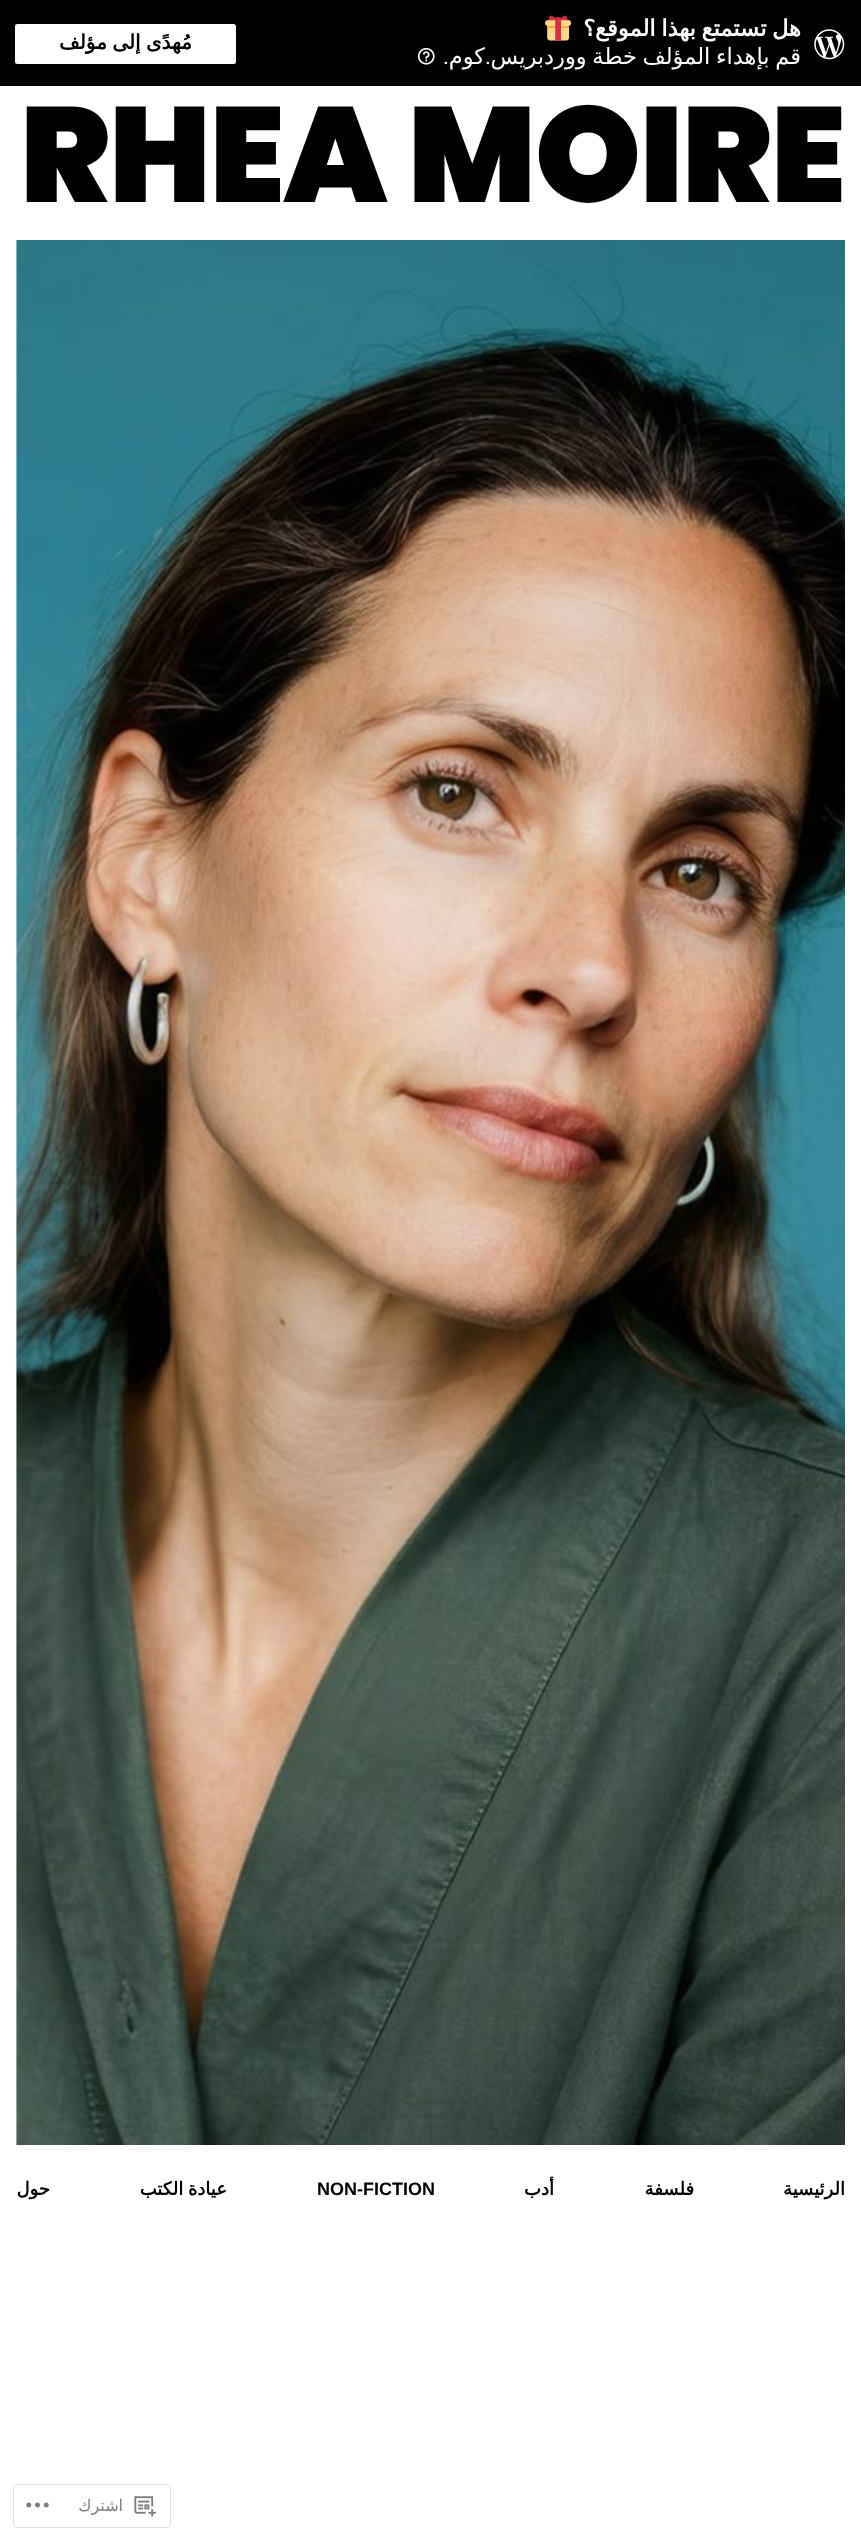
<svg xmlns="http://www.w3.org/2000/svg" width="861" height="2540" viewBox="0 0 861 2540">
  <style>
    .t1 { font: bold 22.5px DejaVu Sans; direction: rtl; fill: #fff; }
    .t2 { font: 22.5px DejaVu Sans; direction: rtl; fill: #fff; }
    .t3 { font: 22.5px Roboto; direction: rtl; fill: #fff; }
    .t4 { font: bold 20px DejaVu Sans; direction: rtl; fill: #000; }
    .t5 { font: 900 135px Poppins; letter-spacing: -1.4px; fill: #000; }
    .t6 { font: bold 18px DejaVu Sans; direction: rtl; fill: #000; }
    .t7 { font: bold 18px Liberation Sans; fill: #000; }
    .t8 { font: 16px DejaVu Sans; direction: rtl; fill: #7b7f85; }
  </style>
  <rect width="100%" height="100%" fill="#fff"/>
  <rect x="0" y="0" width="861" height="86" fill="#000"/>
  <image x="814" y="29" width="31" height="31" href="images/1.png"/>
  <text x="801" y="36" word-spacing="-1.5" class="t1">هل تستمتع بهذا الموقع؟</text>
  <image x="545" y="15" width="26" height="26" href="images/2.png"/>
  <text x="801" y="64" word-spacing="-1.5" class="t2">قم بإهداء المؤلف خطة ووردبريس</text>
  <text x="491" y="64" class="t3">.</text>
  <text x="485" y="64" class="t2">كوم</text>
  <text x="449" y="64" class="t3">.</text>
  <image x="417" y="47" width="18" height="18" href="images/3.png"/>
  <rect x="15" y="24" width="221" height="40" rx="2.5" fill="#fff"/>
  <text x="192" y="49" word-spacing="-1" class="t4">مُهدًى إلى مؤلف</text>
  <text x="20" y="202" class="t5">RHEA MOIRE</text>
  <image x="16" y="240" width="829" height="1905" href="images/4.png"/>
  <text x="845" y="2195" class="t6">الرئيسية</text>
  <text x="694" y="2195" class="t6">فلسفة</text>
  <text x="554" y="2195" class="t6">أدب</text>
  <text x="317" y="2195" class="t7">NON-FICTION</text>
  <text x="227" y="2195" word-spacing="-1" class="t6">عيادة الكتب</text>
  <text x="50" y="2195" class="t6">حول</text>
  <rect x="13.5" y="2484.5" width="157" height="43" rx="3.5" fill="none" stroke="#dddddf"/>
  <image x="134" y="2496" width="22" height="21" href="images/5.png"/>
  <text x="123" y="2511" class="t8">اشترك</text>
  <image x="26" y="2502" width="23" height="6" href="images/6.png"/>
</svg>
